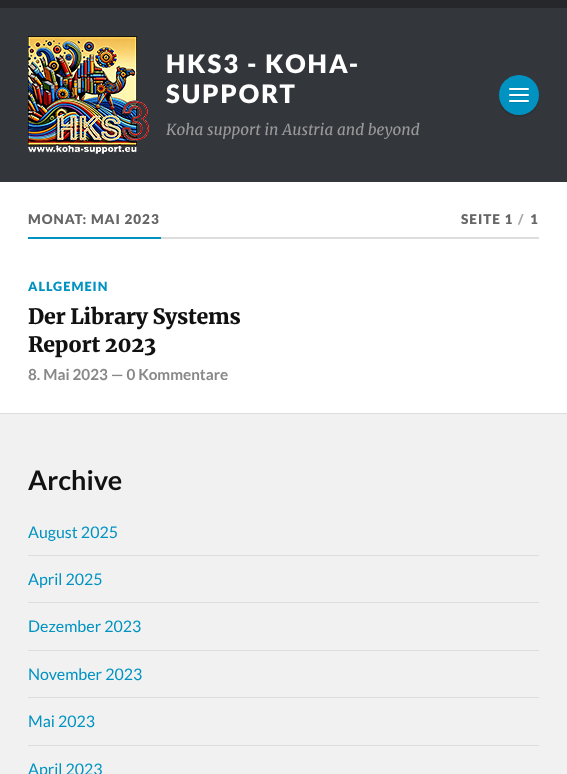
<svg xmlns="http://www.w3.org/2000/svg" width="567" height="774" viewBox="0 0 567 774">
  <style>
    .t1 { font: 900 25.5px Lato; letter-spacing: 2px; fill: #fff; }
    .t2 { font: italic 15.25px Merriweather; fill: #999; }
    .t3 { font: 900 13.5px Lato; letter-spacing: 1px; fill: #666; }
    .t4 { font: 900 13.5px Lato; letter-spacing: 1px; fill: #aaa; }
    .t5 { font: 900 12.75px Lato; letter-spacing: 1px; fill: #0093c2; }
    .t6 { font: 900 21.25px Merriweather; letter-spacing: -0.25px; fill: #111; }
    .t7 { font: bold 15.25px Lato; fill: #888; }
    .t8 { font: bold 27px Lato; fill: #111; }
    .t9 { font: 16px Lato; fill: #0093c2; }
  </style>
  <rect width="100%" height="100%" fill="#fff"/>
  <rect x="0" y="8" width="567" height="174" fill="#33363b"/>
  <rect x="0" y="0" width="567" height="8" fill="#26272b"/>
  <image x="28" y="36" width="121" height="118" href="images/1.png"/>
  <text x="166" y="73" class="t1">HKS3 - KOHA-</text>
  <text x="166" y="103" class="t1">SUPPORT</text>
  <path d="M539 96C538 121 500 121 499 96C498 124 540 124 539 96Z" fill="#2e3135"/>
  <circle cx="519" cy="95" r="20" fill="#0093c2"/>
  <path d="M509 89.5C508 91 511 91 513 91H525C527 91 530 91 529 89.5L528 90H510Z" fill="#0084af"/>
  <rect x="509" y="88" width="20" height="2" rx="1" fill="#fff"/>
  <path d="M509 95.5C508 97 511 97 513 97H525C527 97 530 97 529 95.5L528 96H510Z" fill="#0084af"/>
  <rect x="509" y="94" width="20" height="2" rx="1" fill="#fff"/>
  <path d="M509 101.5C508 103 511 103 513 103H525C527 103 530 103 529 101.5L528 102H510Z" fill="#0084af"/>
  <rect x="509" y="100" width="20" height="2" rx="1" fill="#fff"/>
  <text x="166" y="135" class="t2">Koha support in Austria and beyond</text>
  <rect x="161" y="237" width="378" height="2" fill="#ddd"/>
  <rect x="28" y="237" width="133" height="2" fill="#0093c2"/>
  <text x="28" y="224" class="t3">MONAT: MAI 2023</text>
  <text x="461" y="224" class="t3">SEITE 1</text>
  <text x="518" y="224" class="t4">/</text>
  <text x="530" y="224" class="t3">1</text>
  <text x="28" y="291" class="t5">ALLGEMEIN</text>
  <text x="28" y="324" class="t6">Der Library Systems</text>
  <text x="28" y="352" class="t6">Report 2023</text>
  <text x="28" y="380" class="t7">8. Mai 2023 — 0 Kommentare</text>
  <rect x="0" y="414" width="567" height="360" fill="#f1f1f1"/>
  <rect x="0" y="413" width="567" height="1" fill="#ddd"/>
  <text x="28" y="490" class="t8">Archive</text>
  <rect x="28" y="555" width="511" height="1" fill="#ddd"/>
  <text x="28" y="538" class="t9">August 2025</text>
  <rect x="28" y="602" width="511" height="1" fill="#ddd"/>
  <text x="28" y="585" class="t9">April 2025</text>
  <rect x="28" y="650" width="511" height="1" fill="#ddd"/>
  <text x="28" y="632" class="t9">Dezember 2023</text>
  <rect x="28" y="697" width="511" height="1" fill="#ddd"/>
  <text x="28" y="680" class="t9">November 2023</text>
  <rect x="28" y="745" width="511" height="1" fill="#ddd"/>
  <text x="28" y="727" class="t9">Mai 2023</text>
  <text x="28" y="775" class="t9">April 2023</text>
</svg>
